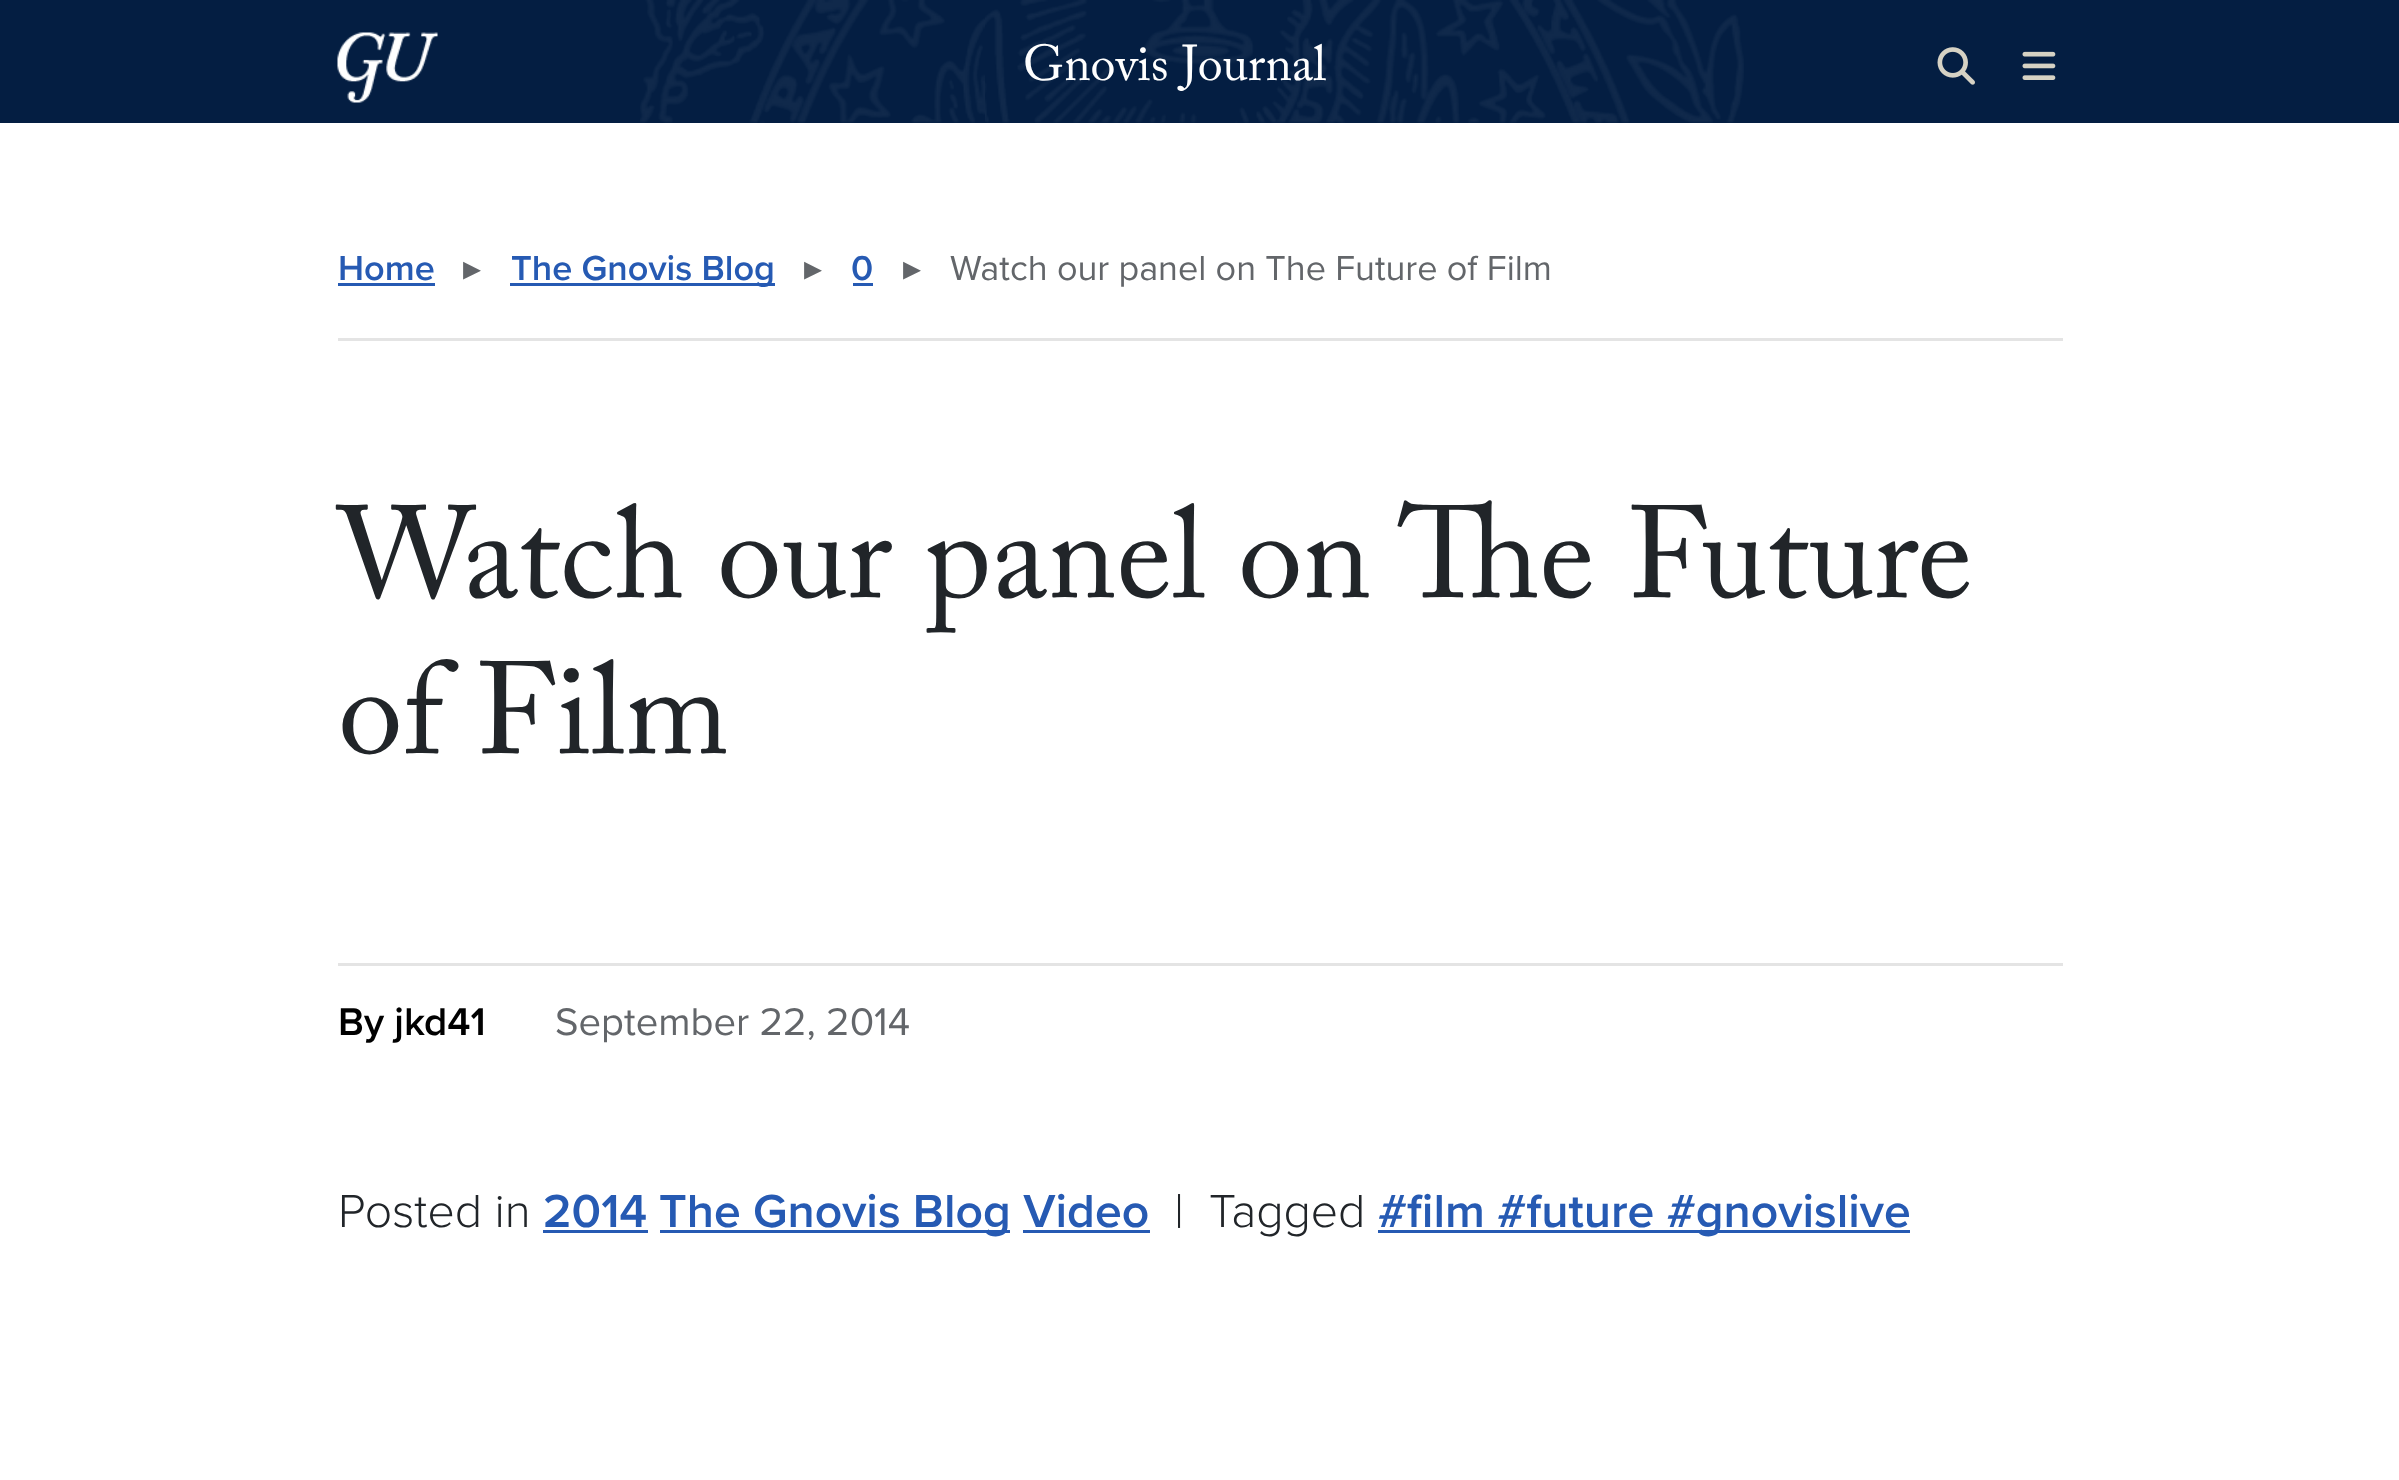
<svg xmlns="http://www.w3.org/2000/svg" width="2399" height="1480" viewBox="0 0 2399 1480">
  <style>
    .t1 { font: 50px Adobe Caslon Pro; fill: #fff; }
    .t2 { font: 600 36px Proxima Nova; fill: #265ab3; }
    .t3 { font: 36px DejaVu Sans; fill: #63666a; }
    .t4 { font: 36px Proxima Nova; fill: #63666a; }
    .t5 { font: 130px Adobe Caslon Pro; fill: #212529; }
    .t6 { font: 600 40px Proxima Nova; fill: #000; }
    .t7 { font: 40px Proxima Nova; fill: #63666a; }
    .t8 { font: 300 48px Proxima Nova; fill: #212529; }
    .t9 { font: 600 48px Proxima Nova; fill: #265ab3; }
  </style>
  <rect width="100%" height="100%" fill="#fff"/>
  <rect x="0" y="0" width="2399" height="123" fill="#041e42"/>
  <image x="640" y="0" width="1104" height="123" href="images/1.png"/>
  <image x="337" y="32" width="101" height="71" href="images/2.png"/>
  <text x="1023" y="80" class="t1">Gnovis Journal</text>
  <image x="1937" y="47" width="38" height="38" href="images/3.png"/>
  <image x="2022" y="51" width="34" height="29" href="images/4.png"/>
  <rect x="338" y="338" width="1725" height="3" fill="#e4e4e4"/>
  <text x="338" y="280" class="t2">Home</text>
  <rect x="338" y="283" width="97" height="3" fill="#265ab3"/>
  <text x="463" y="280" class="t3">▸</text>
  <rect x="510" y="283" width="265" height="3" fill="#265ab3"/>
  <text x="511" y="280" class="t2">The Gnovis Blog</text>
  <text x="804" y="280" class="t3">▸</text>
  <text x="851" y="280" class="t2">0</text>
  <rect x="853" y="283" width="20" height="3" fill="#265ab3"/>
  <text x="903" y="280" class="t3">▸</text>
  <text x="950" y="280" class="t4">Watch our panel on The Future of Film</text>
  <text x="338" y="597" class="t5">Watch our panel on The Future</text>
  <text x="338" y="753" class="t5">of Film</text>
  <rect x="338" y="963" width="1725" height="3" fill="#e4e4e4"/>
  <text x="338" y="1035" class="t6">By jkd41</text>
  <text x="555" y="1035" class="t7">September 22, 2014</text>
  <text x="338" y="1227" class="t8">Posted in</text>
  <text x="543" y="1227" class="t9">2014</text>
  <rect x="543" y="1230" width="105" height="3" fill="#265ab3"/>
  <rect x="660" y="1230" width="350" height="3" fill="#265ab3"/>
  <text x="659" y="1227" class="t9">The Gnovis Blog Video</text>
  <text x="1174" y="1227" class="t8">|</text>
  <text x="1209" y="1227" class="t8">Tagged</text>
  <rect x="1378" y="1230" width="532" height="3" fill="#265ab3"/>
  <text x="1378" y="1227" class="t9">#film #future #gnovislive</text>
  <rect x="1023" y="1230" width="127" height="3" fill="#265ab3"/>
</svg>
